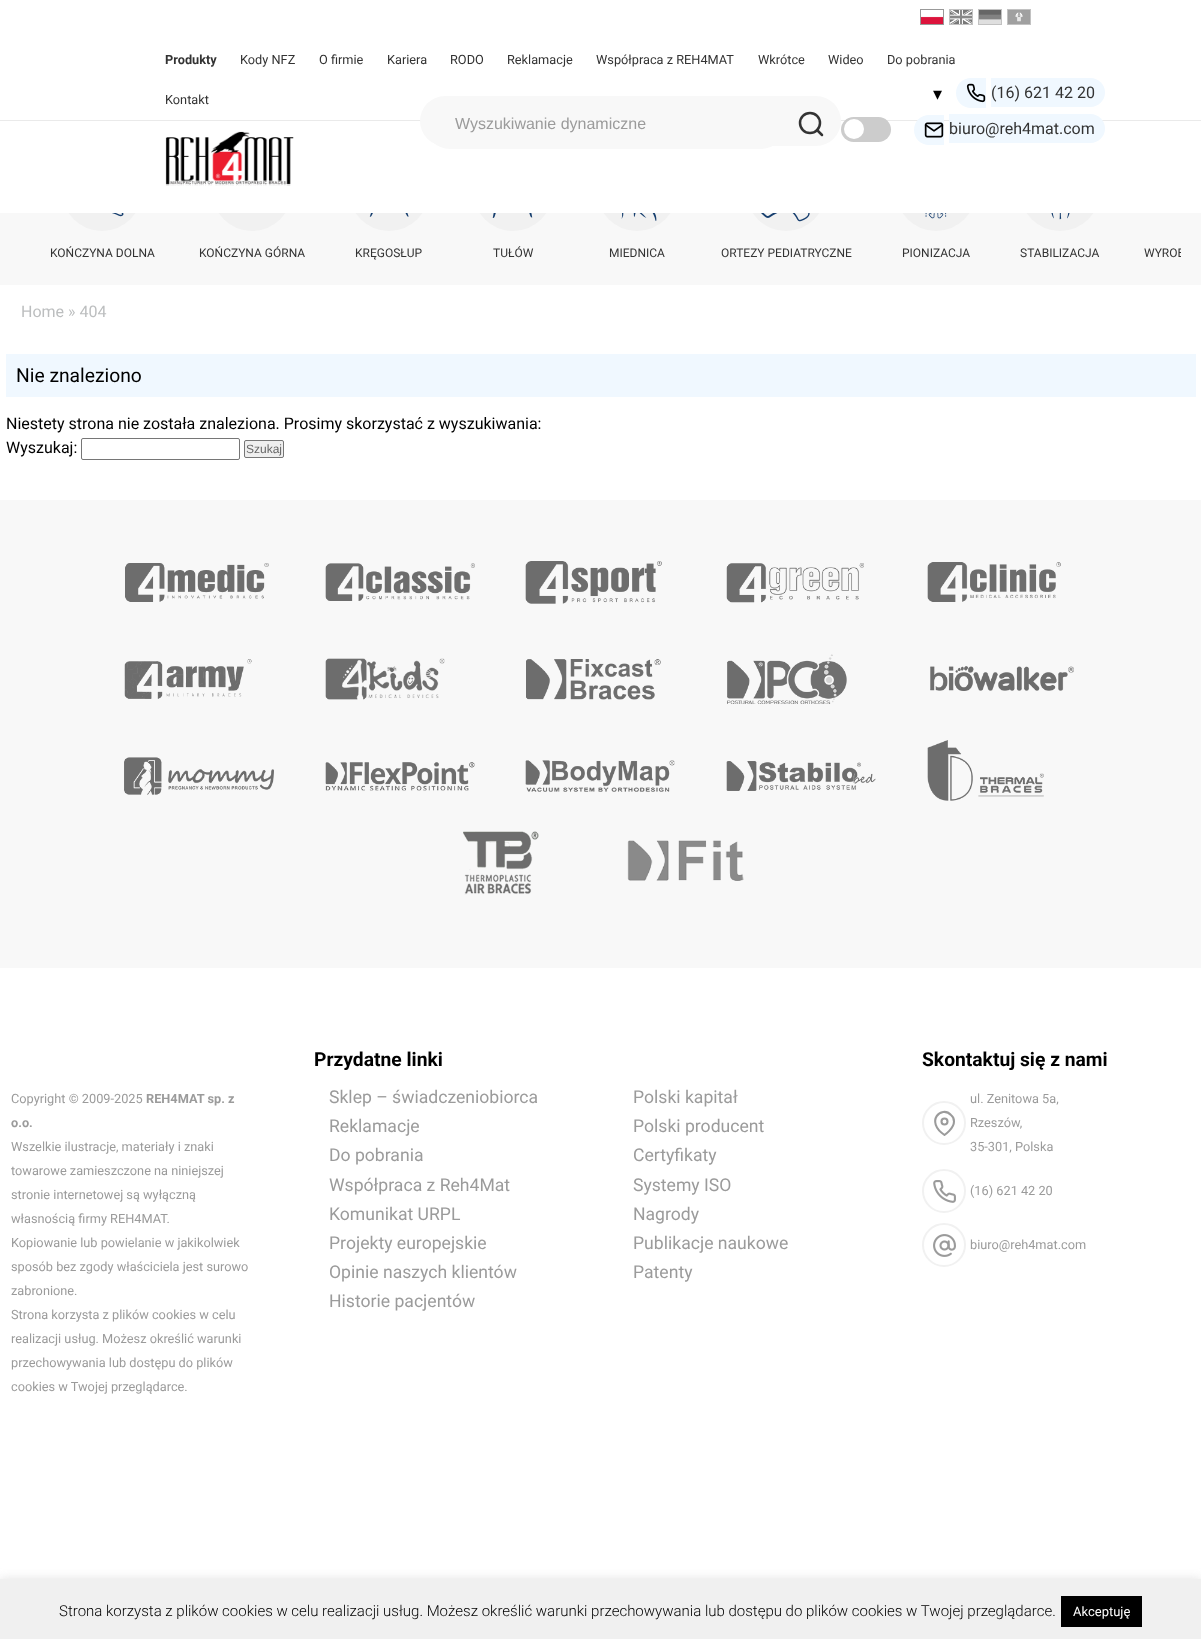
<svg xmlns="http://www.w3.org/2000/svg" width="1201" height="1639" viewBox="0 0 1201 1639">
  <style>
    .t1 { font: bold 12.75px Roboto; fill: #333; }
    .t2 { font: 12.75px Roboto; fill: #333; }
    .t3 { font: 16px Liberation Sans; fill: #9b9b9b; }
    .t4 { font: 18px DejaVu Sans; fill: #000; }
    .t5 { font: 16px Roboto; fill: #333; }
    .t6 { font: 12px Roboto; fill: #333; }
    .t7 { font: 16px Roboto; fill: #bcbebf; }
    .t8 { font: 19.25px Roboto; fill: #000; }
    .t9 { font: 16px Roboto; fill: #000; }
    .t10 { font: 12px Liberation Sans; fill: #666; }
    .t11 { font: 12.75px Roboto; fill: #9b9b9b; }
    .t12 { font: bold 12.75px Roboto; fill: #9b9b9b; }
    .t13 { font: bold 19.25px Roboto; fill: #000; }
    .t14 { font: 17.6px Roboto; fill: #9b9b9b; }
    .t15 { font: 300 15px Roboto; fill: #000; }
    .t16 { font: 13px Roboto; fill: #fff; }
  </style>
  <defs>
    <clipPath id="clip1"><rect x="20" y="130" width="1161" height="155"/></clipPath>
  </defs>
  <rect width="100%" height="100%" fill="#fff"/>
  <rect x="0" y="213" width="1201" height="72" fill="#f8f8f8"/>
  <circle cx="102" cy="191" r="40" fill="#f1f1f1"/>
  <circle cx="252" cy="191" r="40" fill="#f1f1f1"/>
  <circle cx="389" cy="191" r="40" fill="#f1f1f1"/>
  <circle cx="513" cy="191" r="40" fill="#f1f1f1"/>
  <circle cx="637" cy="191" r="40" fill="#f1f1f1"/>
  <circle cx="786" cy="191" r="40" fill="#f1f1f1"/>
  <circle cx="936" cy="191" r="40" fill="#f1f1f1"/>
  <circle cx="1060" cy="191" r="40" fill="#f1f1f1"/>
  <rect x="62" y="151" width="1038" height="62" fill="#fff"/>
  <rect x="0" y="120" width="1201" height="1" fill="#eaeaea"/>
  <rect x="920.5" y="9.5" width="23" height="15" fill="none" stroke="#999"/>
  <rect x="949.5" y="9.5" width="23" height="15" fill="none" stroke="#c2c2c2"/>
  <rect x="978.5" y="9.5" width="23" height="15" fill="none" stroke="#c2c2c2"/>
  <rect x="1007.5" y="9.5" width="23" height="15" fill="none" stroke="#c2c2c2"/>
  <image x="921" y="16" width="22" height="8" href="images/1.png"/>
  <image x="950" y="10" width="22" height="14" href="images/2.png"/>
  <image x="979" y="10" width="22" height="14" href="images/3.png"/>
  <image x="1008" y="10" width="22" height="14" href="images/4.png"/>
  <text x="165" y="64" class="t1">Produkty</text>
  <text x="240" y="64" class="t2">Kody NFZ</text>
  <text x="319" y="64" class="t2">O firmie</text>
  <text x="387" y="64" class="t2">Kariera</text>
  <text x="450" y="64" class="t2">RODO</text>
  <text x="507" y="64" class="t2">Reklamacje</text>
  <text x="596" y="64" class="t2">Współpraca z REH4MAT</text>
  <text x="758" y="64" class="t2">Wkrótce</text>
  <text x="828" y="64" class="t2">Wideo</text>
  <text x="887" y="64" class="t2">Do pobrania</text>
  <text x="165" y="104" class="t2">Kontakt</text>
  <image x="165" y="131" width="129" height="55" href="images/5.png"/>
  <rect x="420" y="96" width="421" height="50" rx="25" fill="#f8f8f8"/>
  <rect x="425" y="99" width="361" height="50" rx="25" fill="#f8f8f8"/>
  <text x="455" y="129" class="t3">Wyszukiwanie dynamiczne</text>
  <circle cx="810" cy="123" r="10" fill="none" stroke="#333" stroke-width="2.5"/>
  <path d="M822 135L817 130" fill="none" stroke="#333" stroke-width="2.5" stroke-linecap="round" stroke-linejoin="round"/>
  <rect x="841" y="117" width="50" height="25" rx="12.5" fill="#ccc"/>
  <circle cx="854" cy="129" r="10" fill="#fff"/>
  <text x="933" y="100" class="t4">▾</text>
  <path d="M971 78H986V108H971C962.5 108 956 101.5 956 93C956 84.5 962.5 78 971 78Z" fill="#f0f8ff"/>
  <path d="M991 78H1090.5C1098.5 78 1105 84.5 1105 92.5C1105 100.5 1098.5 107 1090.5 107H991Z" fill="#f0f8ff"/>
  <image x="966" y="83" width="20" height="20" href="images/6.png"/>
  <text x="991" y="98" class="t5">(16) 621 42 20</text>
  <path d="M929 115H944V145H929C920.5 145 914 138.5 914 130C914 121.5 920.5 115 929 115Z" fill="#f0f8ff"/>
  <path d="M949 114H1090.5C1098.5 114 1105 120.5 1105 128.5C1105 136.5 1098.5 143 1090.5 143H949Z" fill="#f0f8ff"/>
  <image x="924" y="122" width="20" height="16" href="images/7.png"/>
  <text x="949" y="134" class="t5">biuro@reh4mat.com</text>
  <image x="112" y="213" width="12" height="4" href="images/8.png"/>
  <text x="50" y="257" class="t6">KOŃCZYNA DOLNA</text>
  <text x="199" y="257" class="t6">KOŃCZYNA GÓRNA</text>
  <image x="369" y="213" width="40" height="4" href="images/9.png"/>
  <text x="355" y="257" class="t6">KRĘGOSŁUP</text>
  <image x="492" y="213" width="41" height="5" href="images/10.png"/>
  <text x="493" y="257" class="t6">TUŁÓW</text>
  <image x="621" y="213" width="36" height="8" href="images/11.png"/>
  <text x="609" y="257" class="t6">MIEDNICA</text>
  <image x="761" y="213" width="49" height="9" href="images/12.png"/>
  <text x="721" y="257" class="t6">ORTEZY PEDIATRYCZNE</text>
  <image x="925" y="213" width="22" height="6" href="images/13.png"/>
  <text x="902" y="257" class="t6">PIONIZACJA</text>
  <image x="1051" y="213" width="19" height="7" href="images/14.png"/>
  <text x="1020" y="257" class="t6">STABILIZACJA</text>
  <g clip-path="url(#clip1)">
    <text x="1144" y="257" class="t6">WYROB</text>
  </g>
  <text x="21" y="317" class="t7">Home » 404</text>
  <rect x="6" y="354" width="1190" height="43" fill="#f0f8ff"/>
  <text x="16" y="382" class="t8">Nie znaleziono</text>
  <text x="6" y="429" class="t9">Niestety strona nie została znaleziona. Prosimy skorzystać z wyszukiwania:</text>
  <text x="6" y="453" class="t9">Wyszukaj:</text>
  <rect x="81.5" y="438.5" width="158" height="21" rx="1.5" fill="none" stroke="#767676"/>
  <rect x="244.5" y="440.5" width="39" height="17" rx="1.5" fill="#efefef" stroke="#767676"/>
  <text x="246" y="453" class="t10">Szukaj</text>
  <rect x="0" y="500" width="1201" height="468" fill="#f8f8f8"/>
  <image x="125" y="563" width="144" height="39" href="images/15.png"/>
  <image x="325" y="563" width="150" height="38" href="images/16.png"/>
  <image x="525" y="561" width="137" height="43" href="images/17.png"/>
  <image x="726" y="563" width="138" height="40" href="images/18.png"/>
  <image x="927" y="562" width="134" height="40" href="images/19.png"/>
  <image x="124" y="659" width="128" height="40" href="images/20.png"/>
  <image x="325" y="658" width="120" height="42" href="images/21.png"/>
  <image x="526" y="659" width="135" height="41" href="images/22.png"/>
  <image x="727" y="654" width="120" height="50" href="images/23.png"/>
  <image x="930" y="666" width="144" height="25" href="images/24.png"/>
  <image x="124" y="757" width="150" height="38" href="images/25.png"/>
  <image x="325" y="762" width="150" height="29" href="images/26.png"/>
  <image x="525" y="760" width="150" height="32" href="images/27.png"/>
  <image x="726" y="761" width="150" height="30" href="images/28.png"/>
  <image x="927" y="740" width="117" height="61" href="images/29.png"/>
  <image x="463" y="831" width="76" height="64" href="images/30.png"/>
  <image x="627" y="840" width="117" height="41" href="images/31.png"/>
  <text x="11" y="1103" class="t11">Copyright © 2009-2025</text>
  <text x="146" y="1103" class="t12">REH4MAT sp. z</text>
  <text x="11" y="1127" class="t12">o.o.</text>
  <text x="11" y="1151" class="t11">Wszelkie ilustracje, materiały i znaki</text>
  <text x="11" y="1175" class="t11">towarowe zamieszczone na niniejszej</text>
  <text x="11" y="1199" class="t11">stronie internetowej są wyłączną</text>
  <text x="11" y="1223" class="t11">własnością firmy REH4MAT.</text>
  <text x="11" y="1247" class="t11">Kopiowanie lub powielanie w jakikolwiek</text>
  <text x="11" y="1271" class="t11">sposób bez zgody właściciela jest surowo</text>
  <text x="11" y="1295" class="t11">zabronione.</text>
  <text x="11" y="1319" class="t11">Strona korzysta z plików cookies w celu</text>
  <text x="11" y="1343" class="t11">realizacji usług. Możesz określić warunki</text>
  <text x="11" y="1367" class="t11">przechowywania lub dostępu do plików</text>
  <text x="11" y="1391" class="t11">cookies w Twojej przeglądarce.</text>
  <text x="314" y="1066" class="t13">Przydatne linki</text>
  <text x="329" y="1103" class="t14">Sklep – świadczeniobiorca</text>
  <text x="329" y="1132" class="t14">Reklamacje</text>
  <text x="329" y="1161" class="t14">Do pobrania</text>
  <text x="329" y="1191" class="t14">Współpraca z Reh4Mat</text>
  <text x="329" y="1220" class="t14">Komunikat URPL</text>
  <text x="329" y="1249" class="t14">Projekty europejskie</text>
  <text x="329" y="1278" class="t14">Opinie naszych klientów</text>
  <text x="329" y="1307" class="t14">Historie pacjentów</text>
  <text x="633" y="1103" class="t14">Polski kapitał</text>
  <text x="633" y="1132" class="t14">Polski producent</text>
  <text x="633" y="1161" class="t14">Certyfikaty</text>
  <text x="633" y="1191" class="t14">Systemy ISO</text>
  <text x="633" y="1220" class="t14">Nagrody</text>
  <text x="633" y="1249" class="t14">Publikacje naukowe</text>
  <text x="633" y="1278" class="t14">Patenty</text>
  <text x="922" y="1066" class="t13">Skontaktuj się z nami</text>
  <path d="M954 1121.5C954 1128.5 944.5 1135 944.5 1135C924.5 1121.5 941.5 1105 951 1115C953 1116.5 954 1119 954 1121.5Z" fill="none" stroke="#9b9b9b" stroke-width="2.1" stroke-linecap="round" stroke-linejoin="round"/>
  <circle cx="944.5" cy="1121.5" r="3" fill="none" stroke="#9b9b9b" stroke-width="2.1"/>
  <circle cx="944" cy="1123" r="21" fill="none" stroke="#f1f1f1" stroke-width="2"/>
  <text x="970" y="1103" class="t11">ul. Zenitowa 5a,</text>
  <text x="970" y="1127" class="t11">Rzeszów,</text>
  <text x="970" y="1151" class="t11">35-301, Polska</text>
  <image x="933" y="1180" width="23" height="23" href="images/32.png"/>
  <circle cx="944" cy="1191" r="21" fill="none" stroke="#f1f1f1" stroke-width="2"/>
  <text x="970" y="1195" class="t11">(16) 621 42 20</text>
  <image x="933" y="1234" width="23" height="23" href="images/33.png"/>
  <circle cx="944" cy="1245" r="21" fill="none" stroke="#f1f1f1" stroke-width="2"/>
  <text x="970" y="1249" class="t11">biuro@reh4mat.com</text>
  <rect x="0" y="1578" width="1201" height="60" fill="#acabab4d" filter="blur(5px)"/>
  <rect x="0" y="1579" width="1201" height="60" fill="#f0f0f0"/>
  <text x="59" y="1616" class="t15">Strona korzysta z plików cookies w celu realizacji usług. Możesz określić warunki przechowywania lub dostępu do plików cookies w Twojej przeglądarce.</text>
  <rect x="1061" y="1596" width="81" height="31" fill="#000"/>
  <text x="1073" y="1616" class="t16">Akceptuję</text>
</svg>
